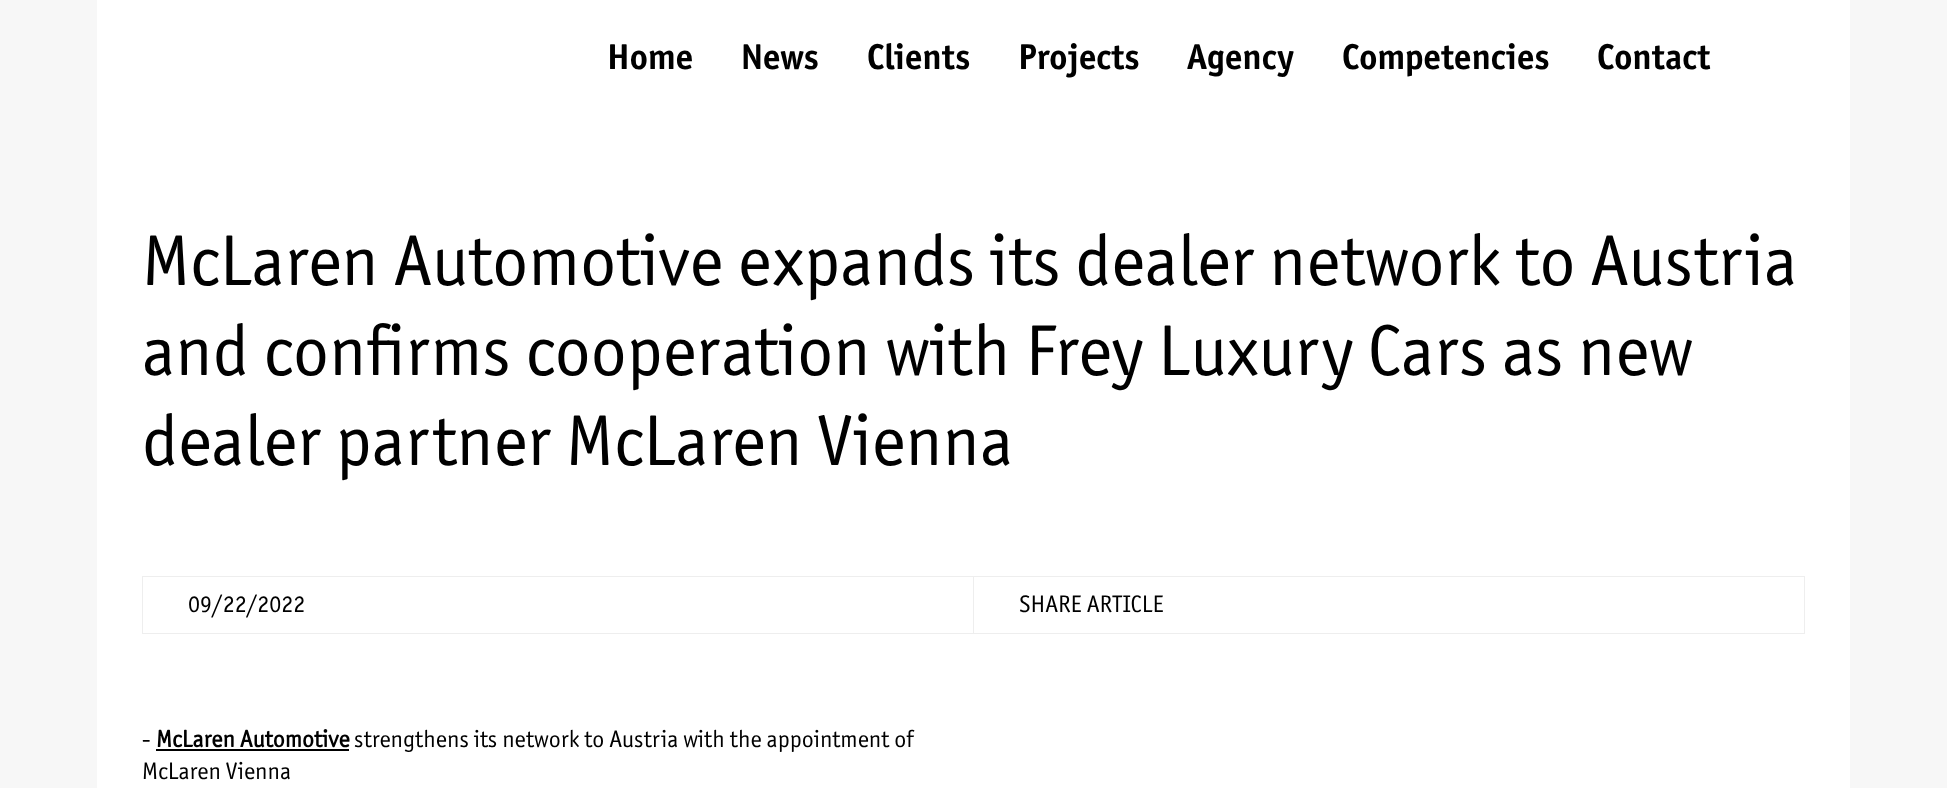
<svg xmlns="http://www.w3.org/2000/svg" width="1947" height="788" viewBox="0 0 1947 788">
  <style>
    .t1 { font: bold 36px 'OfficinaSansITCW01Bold'; fill: #000; }
    .t2 { font: 72px 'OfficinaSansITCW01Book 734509'; fill: #000; }
    .t3 { font: 24px 'OfficinaSansITCW01Book 734509'; fill: #000; }
    .t4 { font: bold 24px 'OfficinaSansITCW01Book 734509'; fill: #000; }
  </style>
  <rect width="100%" height="100%" fill="#f7f7f7"/>
  <rect x="97" y="0" width="1753" height="788" fill="#fff"/>
  <text x="607" y="69" class="t1">Home</text>
  <text x="741" y="69" class="t1">News</text>
  <text x="867" y="69" class="t1">Clients</text>
  <text x="1018" y="69" class="t1">Projects</text>
  <text x="1187" y="69" class="t1">Agency</text>
  <text x="1342" y="69" class="t1">Competencies</text>
  <text x="1597" y="69" class="t1">Contact</text>
  <text x="142" y="285" class="t2">McLaren Automotive expands its dealer network to Austria</text>
  <text x="142" y="375" class="t2">and confirms cooperation with Frey Luxury Cars as new</text>
  <text x="142" y="465" class="t2">dealer partner McLaren Vienna</text>
  <rect x="142" y="576" width="831" height="1" fill="#eee"/>
  <rect x="142" y="633" width="831" height="1" fill="#eee"/>
  <rect x="142" y="576" width="1" height="58" fill="#eee"/>
  <text x="188" y="612" class="t3">09/22/2022</text>
  <rect x="973.5" y="576.5" width="831" height="57" fill="none" stroke="#eee"/>
  <text x="1019" y="612" class="t3">SHARE ARTICLE</text>
  <text x="142" y="747" class="t3">-</text>
  <text x="156" y="747" class="t4">McLaren Automotive</text>
  <rect x="156" y="749" width="193" height="2" fill="#000"/>
  <text x="354" y="747" class="t3">strengthens its network to Austria with the appointment of</text>
  <text x="142" y="779" class="t3">McLaren Vienna</text>
</svg>
